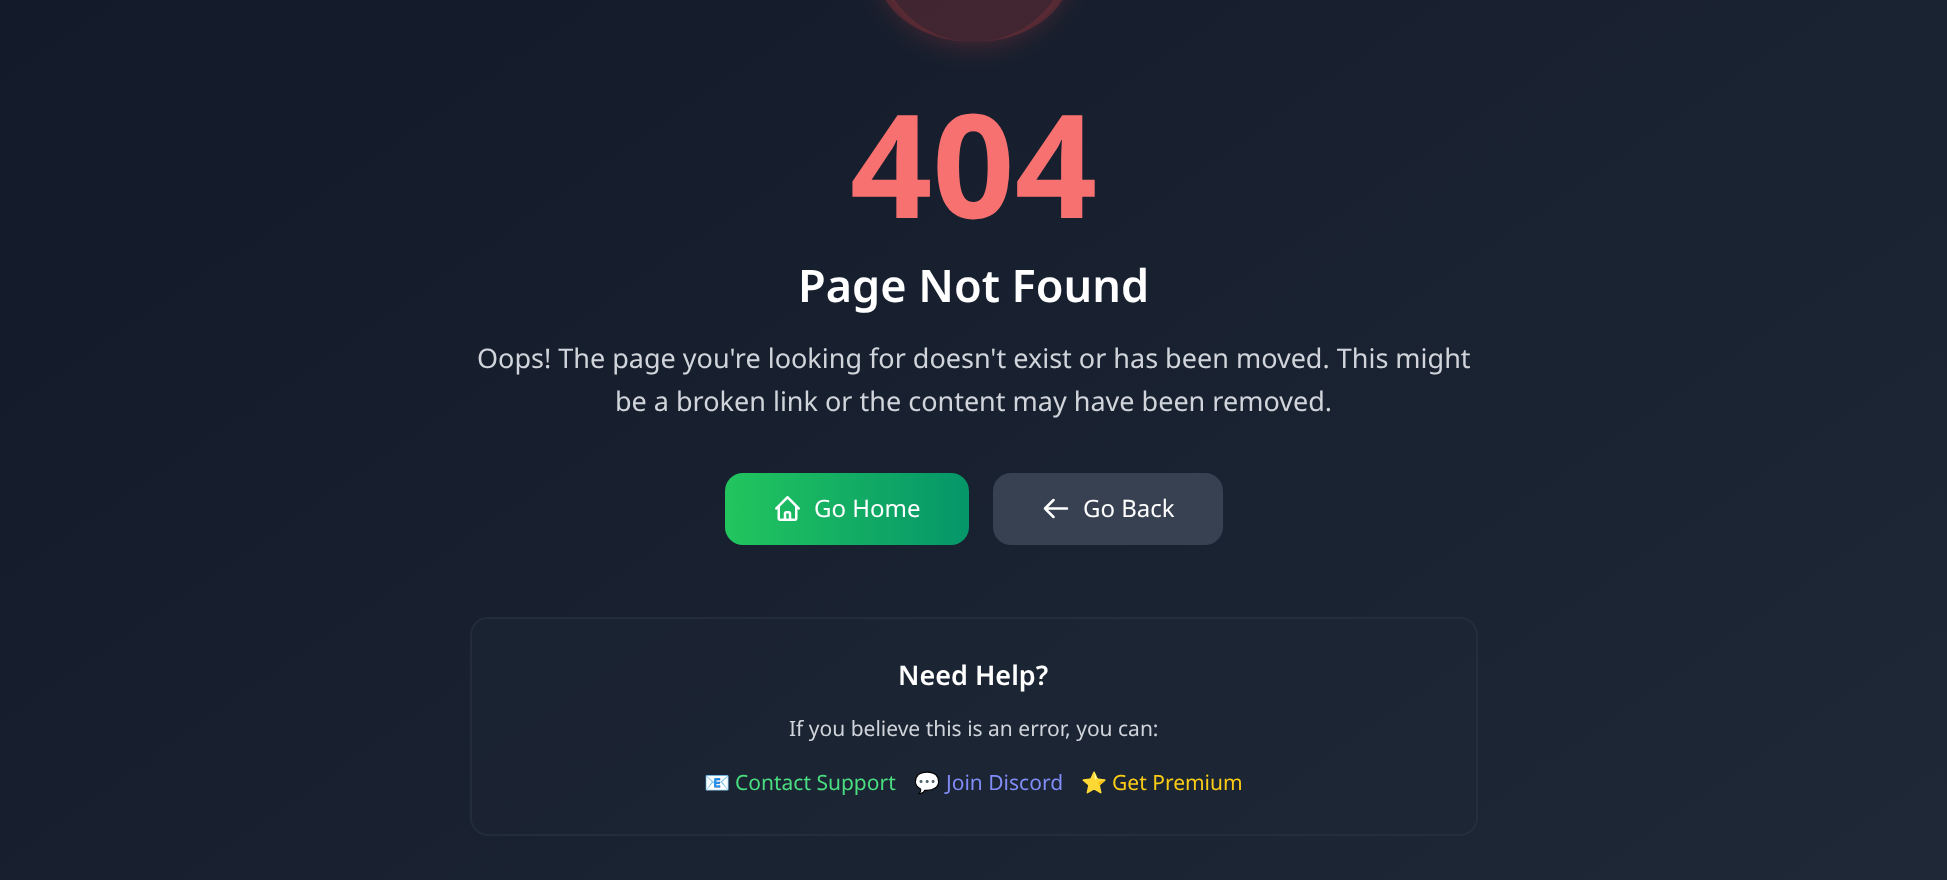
<svg xmlns="http://www.w3.org/2000/svg" width="1947" height="880" viewBox="0 0 1947 880">
  <style>
    .t1 { font: bold 144px Noto Sans; fill: #f87171; }
    .t2 { font: 600 45px Noto Sans; fill: #fff; }
    .t3 { font: 27px Noto Sans; fill: #d1d5db; }
    .t4 { font: 24px Noto Sans; fill: #fff; }
    .t5 { font: 600 27px Noto Sans; fill: #fff; }
    .t6 { font: 21px Noto Sans; fill: #d1d5db; }
    .t7 { font: 21px Noto Color Emoji; fill: #4ade80; }
    .t8 { font: 21px Noto Sans; fill: #4ade80; }
    .t9 { font: 21px Noto Color Emoji; fill: #818cf8; }
    .t10 { font: 21px Noto Sans; fill: #818cf8; }
    .t11 { font: 21px Noto Color Emoji; fill: #facc15; }
    .t12 { font: 21px Noto Sans; fill: #facc15; }
  </style>
  <defs>
    <linearGradient id="g1" gradientUnits="userSpaceOnUse" x1="339" y1="-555" x2="1608" y2="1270"><stop offset="0" stop-color="#111827"/><stop offset="1" stop-color="#1f2937"/></linearGradient>
    <clipPath id="clip1"><path d="M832 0H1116V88H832ZM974-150C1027-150 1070-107 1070-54C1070-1 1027 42 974 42C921 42 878-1 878-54C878-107 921-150 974-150Z" clip-rule="evenodd"/></clipPath>
    <linearGradient id="g2" gradientUnits="userSpaceOnUse" x1="725" y1="509" x2="969" y2="509"><stop offset="0" stop-color="#22c55e"/><stop offset="1" stop-color="#059669"/></linearGradient>
  </defs>
  <rect width="100%" height="100%" fill="#fff"/>
  <rect x="0" y="0" width="1947" height="880" fill="url(#g1)"/>
  <g clip-path="url(#clip1)">
    <rect x="878" y="-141" width="192" height="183" rx="96" fill="#ef44444d" filter="blur(15px)"/>
  </g>
  <rect x="878" y="-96" width="192" height="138" rx="96" fill="#ef444433"/>
  <text x="850" y="218" class="t1">404</text>
  <text x="798" y="302" class="t2">Page Not Found</text>
  <text x="477" y="368" class="t3">Oops! The page you're looking for doesn't exist or has been moved. This might</text>
  <text x="615" y="411" class="t3">be a broken link or the content may have been removed.</text>
  <rect x="725" y="473" width="244" height="72" rx="18" fill="url(#g2)"/>
  <image x="775" y="496" width="25" height="25" href="images/1.png"/>
  <text x="814" y="517" class="t4">Go Home</text>
  <rect x="993" y="473" width="230" height="72" rx="18" fill="#374151"/>
  <path d="M1053.5 517L1045 508.5M1045 508.5L1053.5 500M1045 508.5H1067" fill="none" stroke="#fff" stroke-width="2.5" stroke-linecap="round" stroke-linejoin="round"/>
  <text x="1083" y="517" class="t4">Go Back</text>
  <rect x="470" y="617" width="1008" height="219" rx="18" fill="#1f293766"/>
  <rect x="471" y="618" width="1006" height="217" rx="17" fill="none" stroke="#3741514d" stroke-width="2"/>
  <text x="898" y="685" class="t5">Need Help?</text>
  <text x="789" y="736" class="t6">If you believe this is an error, you can:</text>
  <text x="704" y="790" class="t7">📧</text>
  <text x="735" y="790" class="t8">Contact Support</text>
  <text x="914" y="790" class="t9">💬</text>
  <text x="946" y="790" class="t10">Join Discord</text>
  <text x="1081" y="790" class="t11">⭐</text>
  <text x="1112" y="790" class="t12">Get Premium</text>
</svg>
